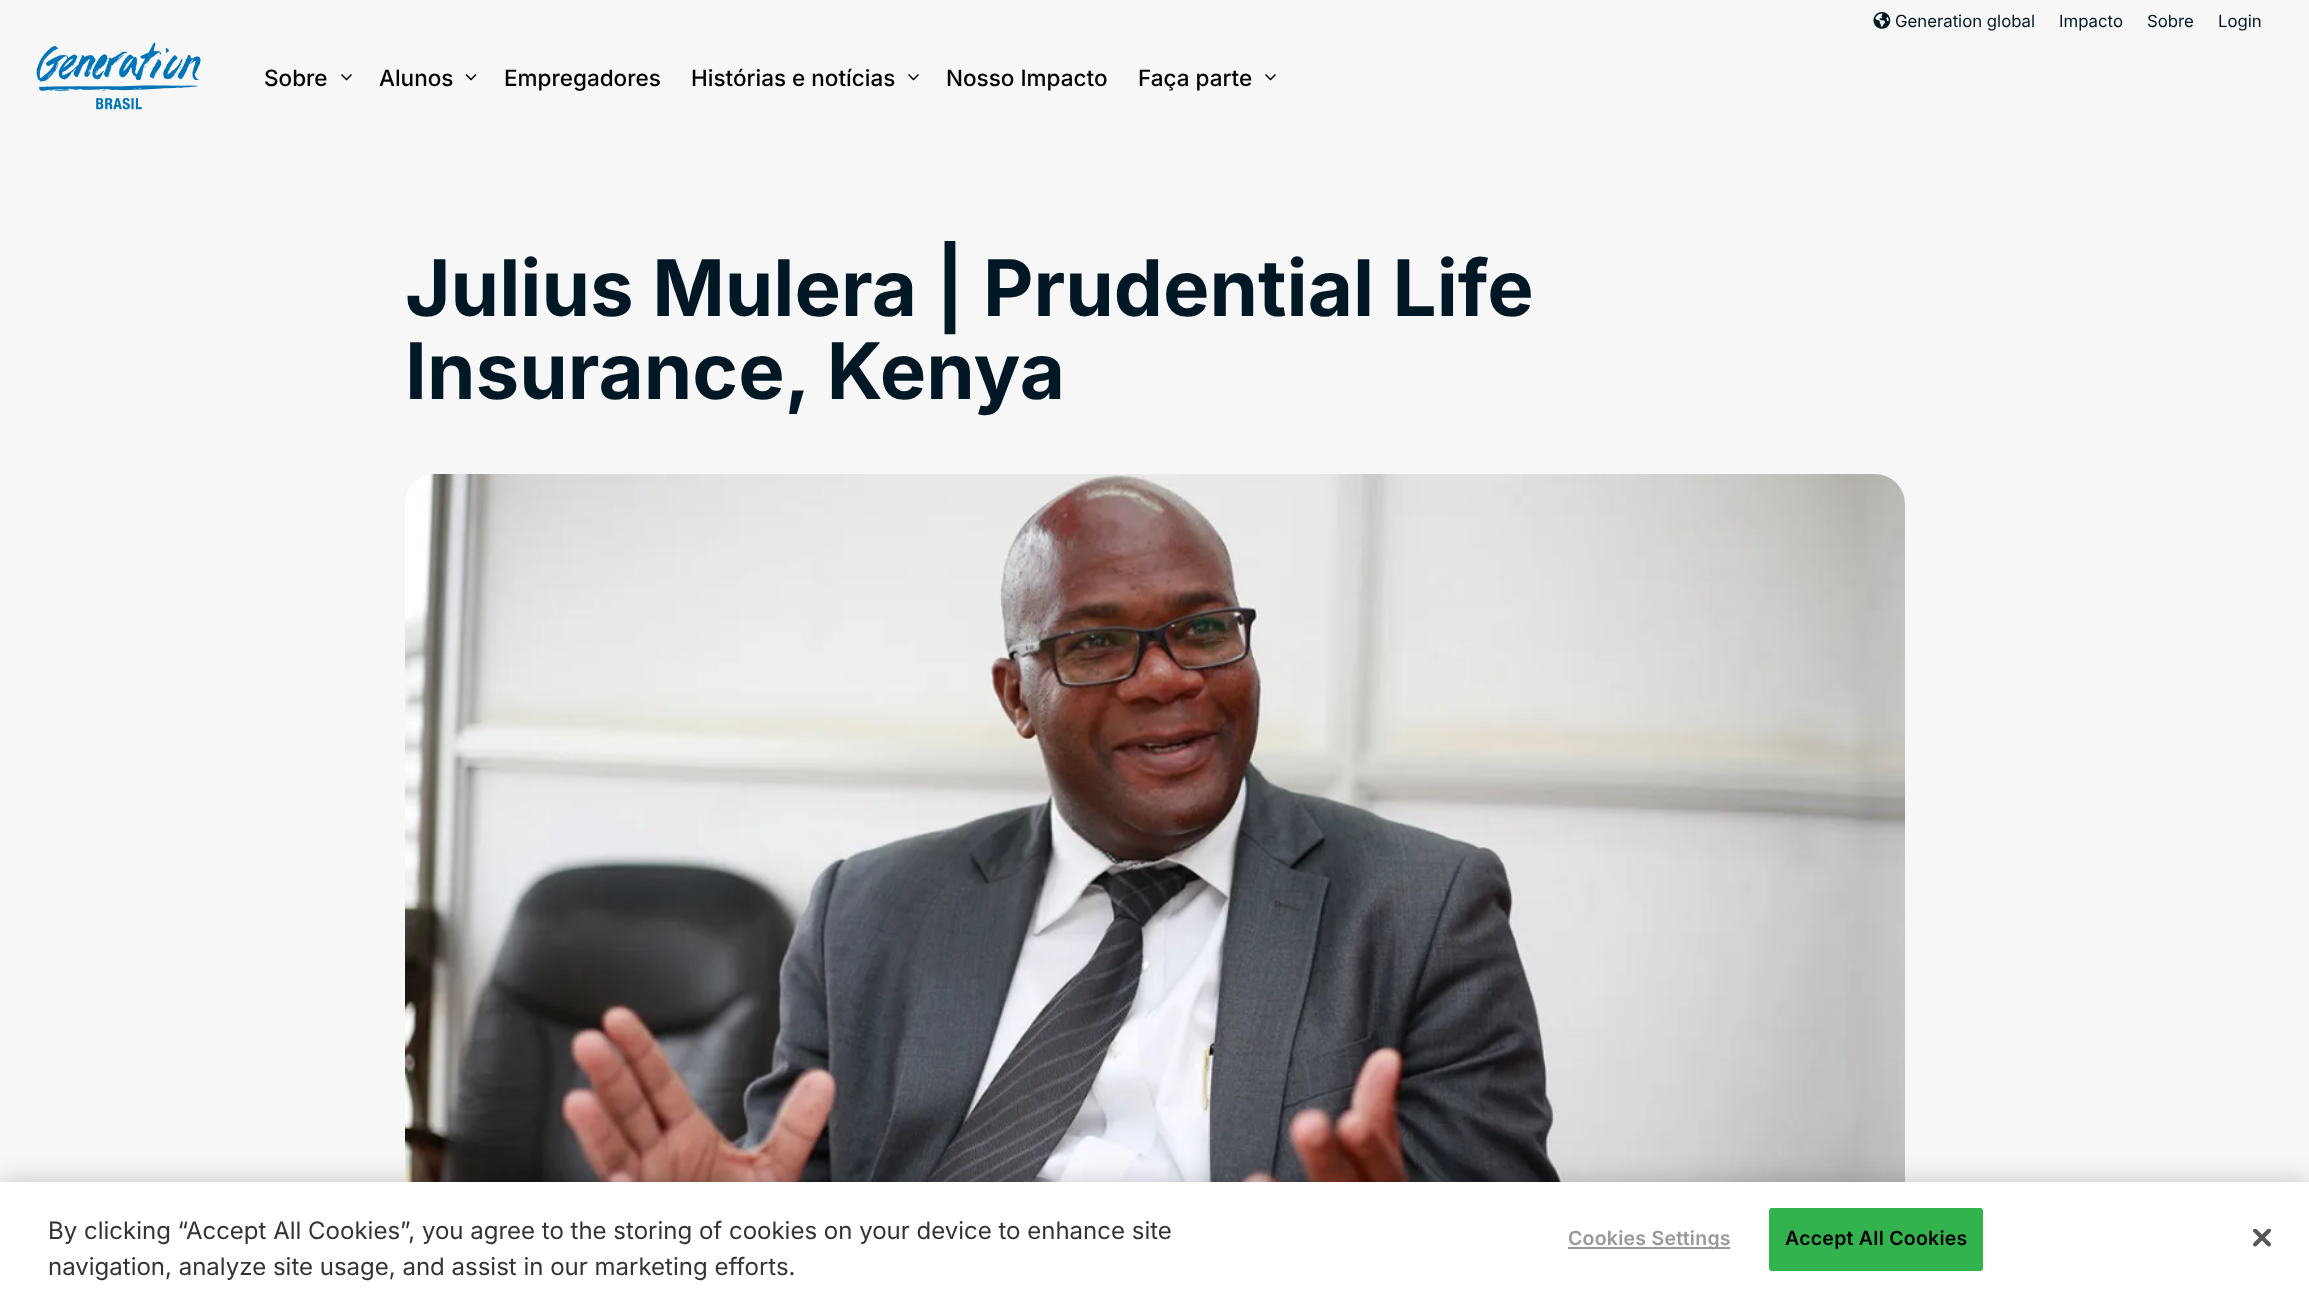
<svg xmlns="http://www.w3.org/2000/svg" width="2309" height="1299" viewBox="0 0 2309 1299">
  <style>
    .t1 { font: 16.75px Inter; fill: #001725; }
    .t2 { font: 500 22.5px Inter; fill: #000; }
    .t3 { font: bold 78px Inter; fill: #001725; }
    .t4 { font: 24px Inter; fill: #333; }
    .t5 { font: 600 19.5px Inter; letter-spacing: 0.25px; fill: #999; }
    .t6 { font: 600 19.5px Inter; letter-spacing: 0.25px; fill: #000; }
  </style>
  <rect width="100%" height="100%" fill="#f7f7f8"/>
  <image x="1873" y="12" width="18" height="17" href="images/1.png"/>
  <text x="1895" y="27" class="t1">Generation global</text>
  <text x="2059" y="27" class="t1">Impacto</text>
  <text x="2147" y="27" class="t1">Sobre</text>
  <text x="2218" y="27" class="t1">Login</text>
  <image x="36" y="42" width="165" height="68" href="images/2.png"/>
  <text x="264" y="86" class="t2">Sobre</text>
  <image x="341" y="74" width="11" height="7" href="images/3.png"/>
  <text x="379" y="86" class="t2">Alunos</text>
  <image x="465" y="74" width="12" height="7" href="images/4.png"/>
  <text x="504" y="86" class="t2">Empregadores</text>
  <text x="691" y="86" class="t2">Histórias e notícias</text>
  <image x="908" y="74" width="11" height="7" href="images/3.png"/>
  <text x="946" y="86" class="t2">Nosso Impacto</text>
  <text x="1138" y="86" class="t2">Faça parte</text>
  <image x="1265" y="74" width="11" height="7" href="images/5.png"/>
  <text x="405" y="316" class="t3">Julius Mulera | Prudential Life</text>
  <text x="405" y="399" class="t3">Insurance, Kenya</text>
  <image x="405" y="474" width="1500" height="708" href="images/6.png"/>
  <rect x="0" y="1182" width="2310" height="117" fill="#00000033" filter="blur(13.5px)"/>
  <rect x="0" y="1182" width="2309" height="117" fill="#fff"/>
  <text x="48" y="1239" class="t4">By clicking “Accept All Cookies”, you agree to the storing of cookies on your device to enhance site</text>
  <text x="48" y="1275" class="t4">navigation, analyze site usage, and assist in our marketing efforts.</text>
  <rect x="1568" y="1247" width="162" height="2" fill="#999"/>
  <text x="1568" y="1245" class="t5">Cookies Settings</text>
  <rect x="1770" y="1209" width="212" height="61" rx="2" fill="#32b34d" stroke="#32b34d" stroke-width="2"/>
  <text x="1785" y="1245" class="t6">Accept All Cookies</text>
  <image x="2253" y="1229" width="18" height="18" href="images/7.png"/>
</svg>
